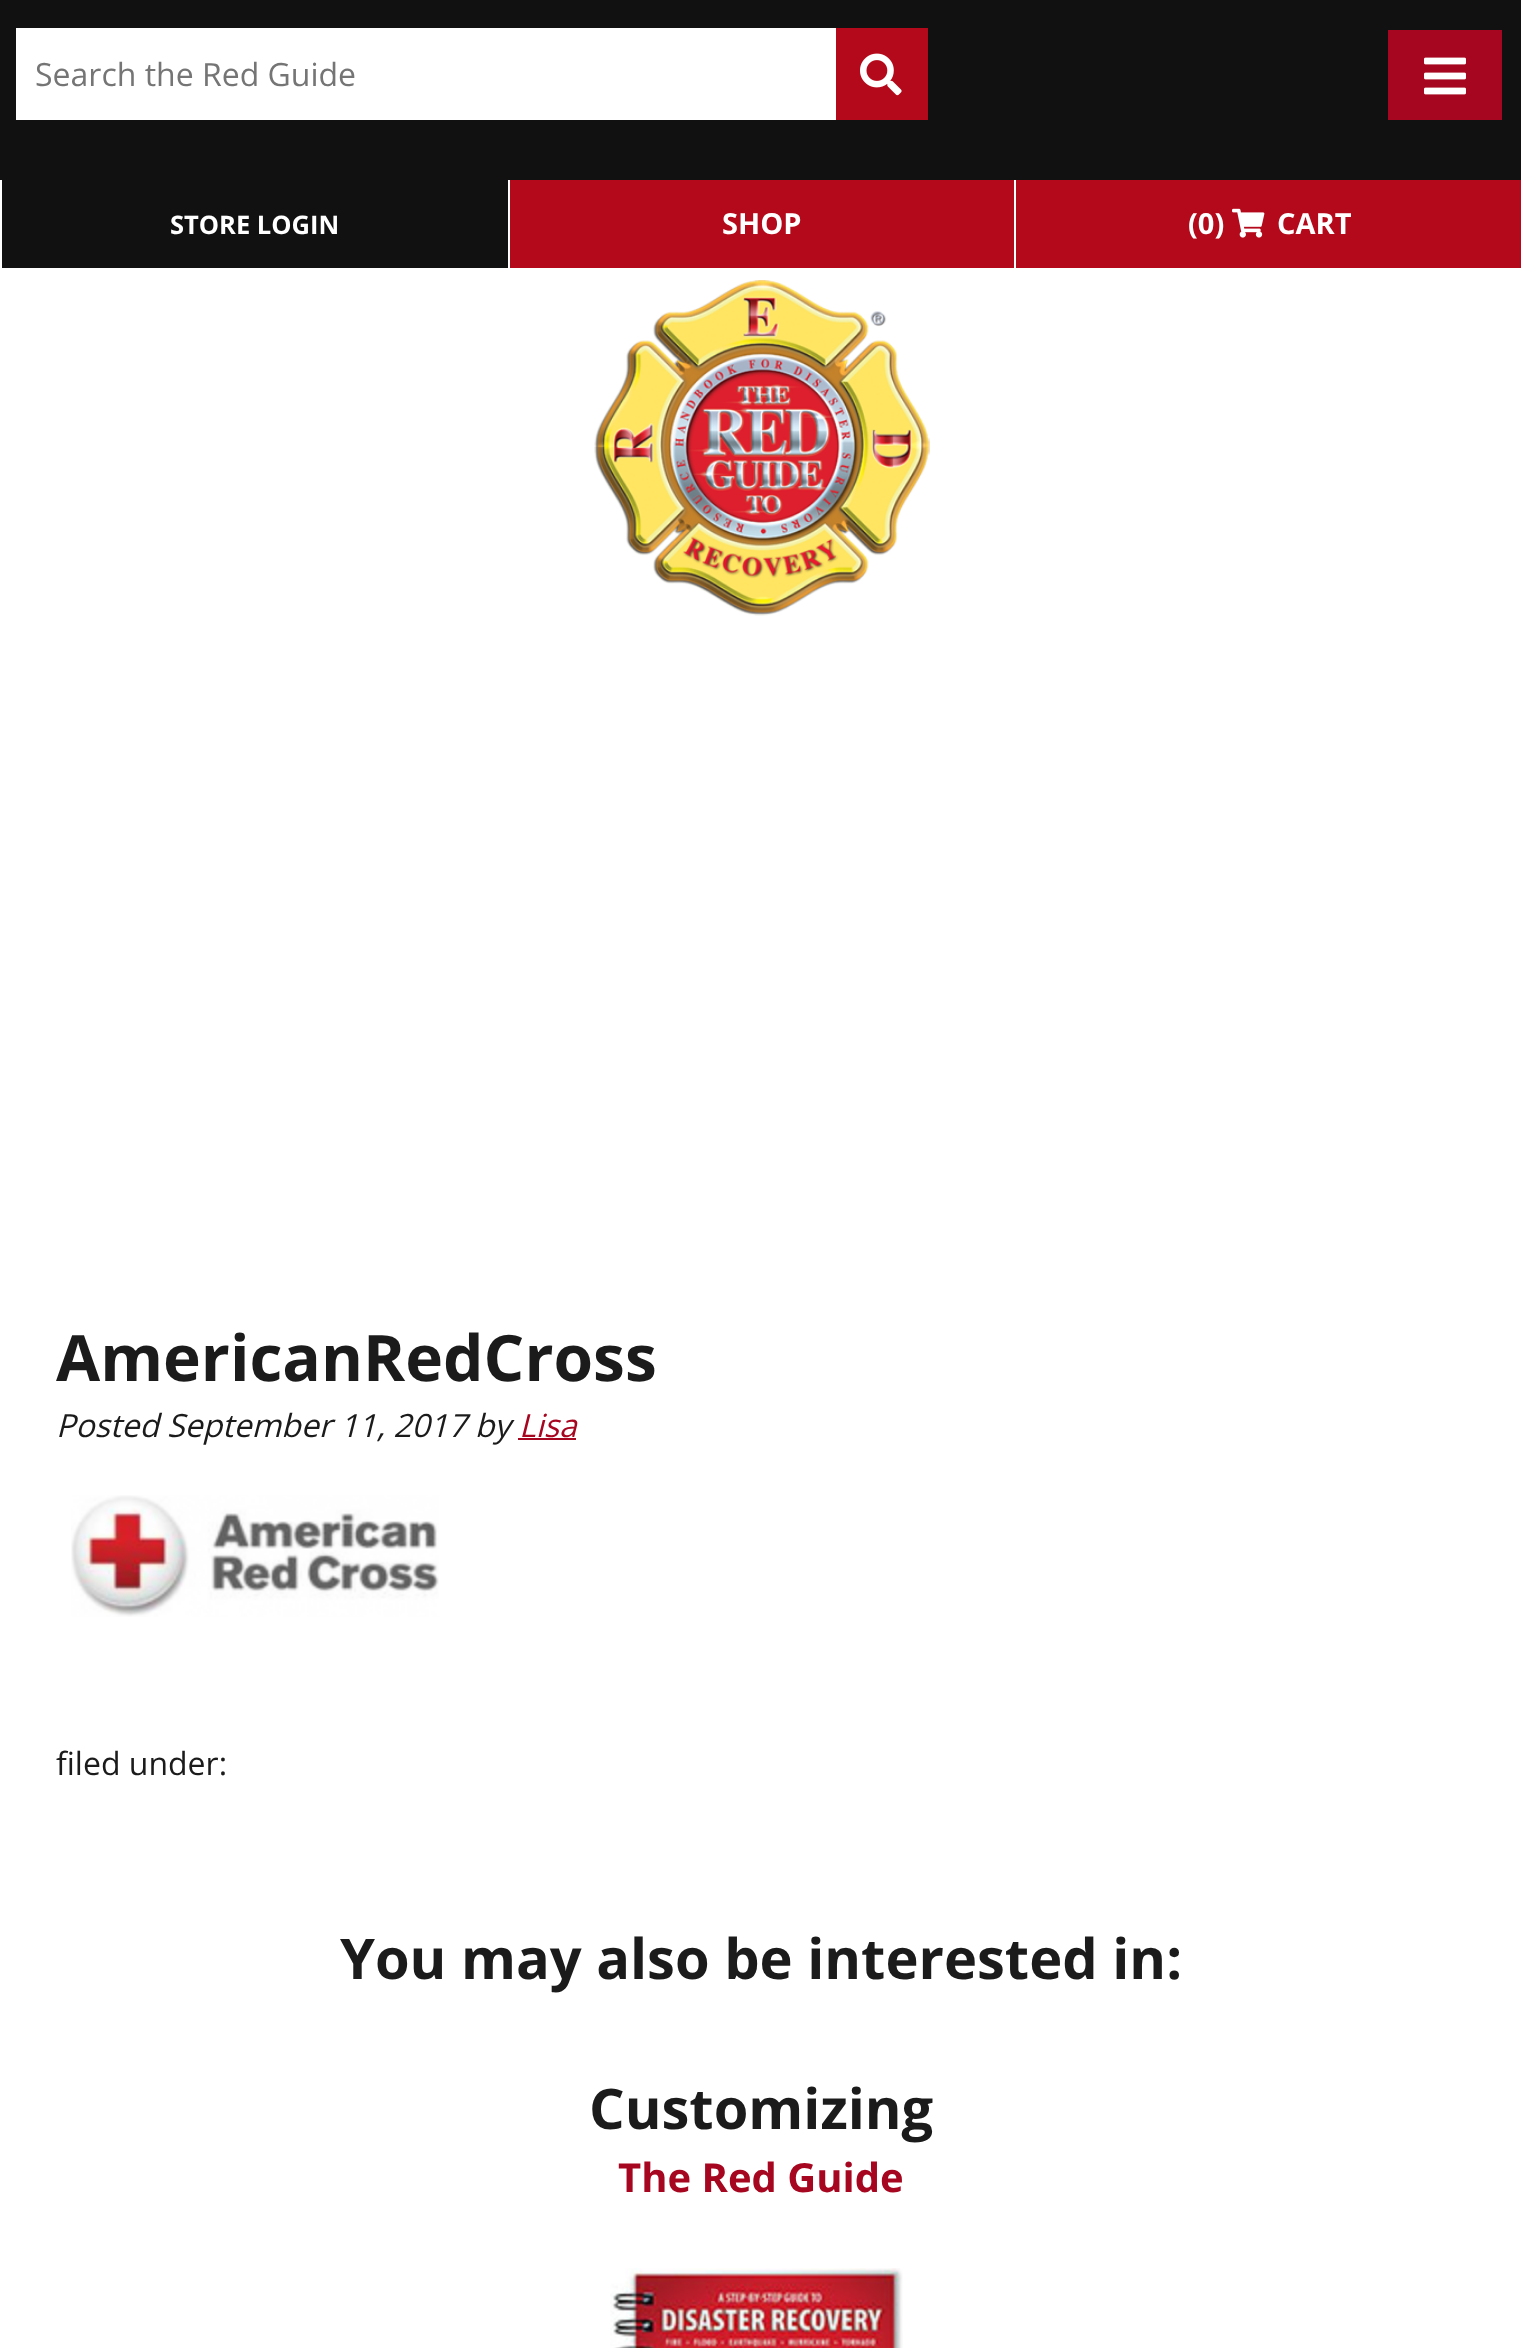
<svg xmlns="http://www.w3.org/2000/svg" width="1521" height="2348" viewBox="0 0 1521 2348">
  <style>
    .t1 { font: 32px Open Sans; fill: #757575; }
    .t2 { font: bold 25.5px Open Sans; fill: #fff; }
    .t3 { font: bold 29px Open Sans; fill: #fff; }
    .t4 { font: bold 64px Open Sans; fill: #1b1b1b; }
    .t5 { font: italic 32px Open Sans; fill: #1b1b1b; }
    .t6 { font: italic 32px Open Sans; fill: #a6061f; }
    .t7 { font: 32px Open Sans; fill: #1b1b1b; }
    .t8 { font: bold 56px Open Sans; fill: #1b1b1b; }
    .t9 { font: bold 40px Open Sans; fill: #a6061f; }
  </style>
  <rect width="100%" height="100%" fill="#fff"/>
  <rect x="0" y="0" width="1521" height="268" fill="#111"/>
  <rect x="1388" y="30" width="114" height="90" fill="#a6061f"/>
  <image x="1424" y="57" width="42" height="38" href="images/1.png"/>
  <image x="594" y="280" width="336" height="336" href="images/2.png"/>
  <rect x="16" y="28" width="820" height="92" fill="#fff"/>
  <text x="35" y="86" class="t1">Search the Red Guide</text>
  <rect x="836" y="28" width="92" height="92" fill="#b3091a"/>
  <image x="860" y="53" width="42" height="43" href="images/3.png"/>
  <rect x="0" y="180" width="2" height="88" fill="#fff"/>
  <text x="170" y="234" class="t2">STORE LOGIN</text>
  <rect x="510" y="180" width="504" height="88" fill="#b3091a"/>
  <rect x="508" y="180" width="2" height="88" fill="#fff"/>
  <text x="722" y="234" class="t3">SHOP</text>
  <rect x="1016" y="180" width="505" height="88" fill="#b3091a"/>
  <rect x="1014" y="180" width="2" height="88" fill="#fff"/>
  <text x="1188" y="234" class="t3">(0)</text>
  <image x="1232" y="208" width="33" height="30" href="images/4.png"/>
  <text x="1277" y="234" class="t3">CART</text>
  <text x="56" y="1381" class="t4">AmericanRedCross</text>
  <text x="56" y="1437" class="t5">Posted September 11, 2017 by</text>
  <text x="519" y="1437" class="t6">Lisa</text>
  <rect x="518" y="1438" width="58" height="2" fill="#a6061f"/>
  <image x="71" y="1495" width="368" height="122" href="images/5.png"/>
  <text x="56" y="1775" class="t7">filed under:</text>
  <text x="340" y="1979" class="t8">You may also be interested in:</text>
  <text x="589" y="2129" class="t8">Customizing</text>
  <text x="618" y="2192" class="t9">The Red Guide</text>
  <image x="610" y="2268" width="293" height="80" href="images/6.png"/>
</svg>
